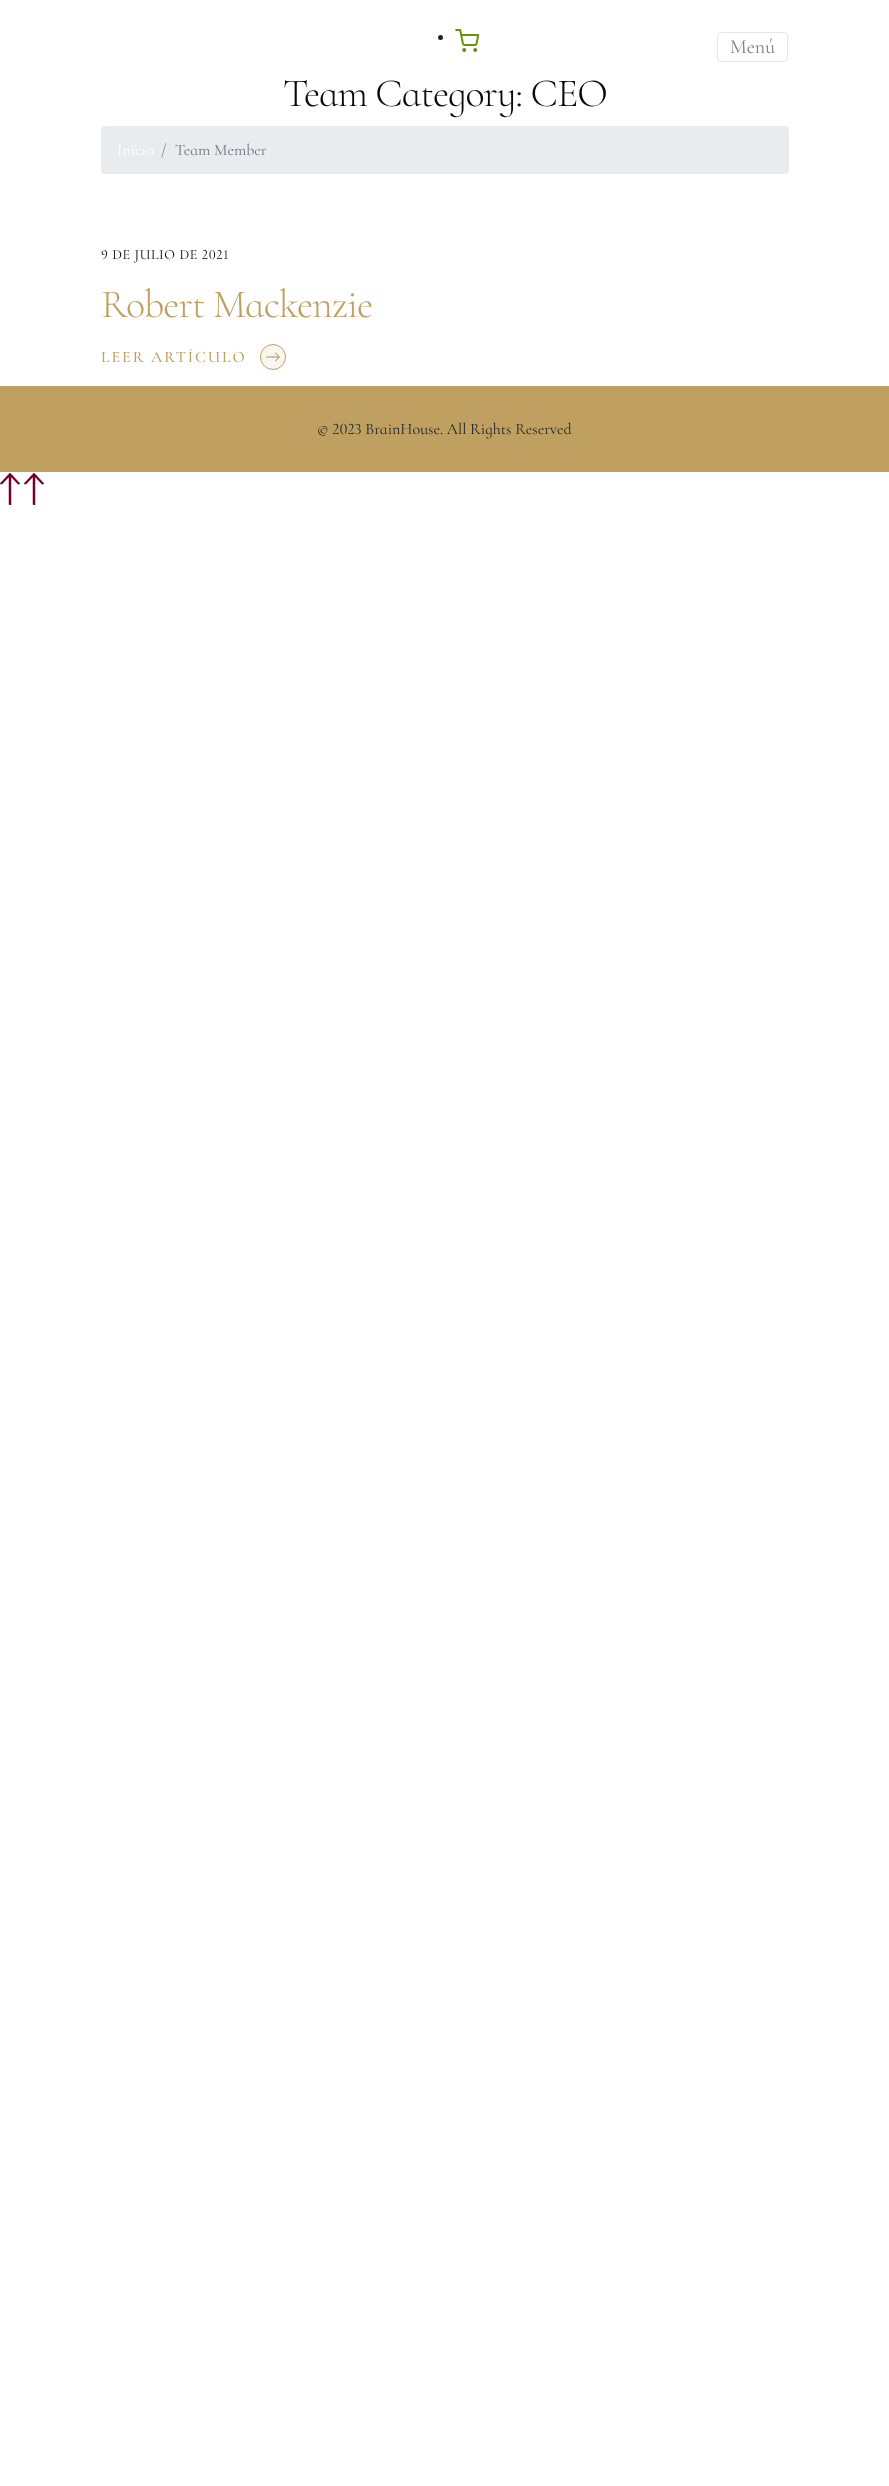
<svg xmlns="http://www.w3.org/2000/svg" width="889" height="2486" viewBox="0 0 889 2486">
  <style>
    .t1 { font: 300 20px Cormorant Infant; fill: #808080; }
    .t2 { font: 300 40px 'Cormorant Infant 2'; letter-spacing: -1px; fill: #0a0a0a; }
    .t3 { font: 300 16px Cormorant Infant; fill: #fff; }
    .t4 { font: 300 16px Cormorant Infant; fill: #6c757d; }
    .t5 { font: 300 14px Cormorant Infant; letter-spacing: 0.6px; fill: #000; }
    .t6 { font: 300 40px 'Cormorant Infant 2'; letter-spacing: -1px; fill: #bfa060; }
    .t7 { font: 500 16px Cormorant Infant; letter-spacing: 1.9px; fill: #bfa060; }
    .t8 { font: 300 16px Cormorant Infant; fill: #212529; }
  </style>
  <rect width="100%" height="100%" fill="#fff"/>
  <circle cx="440.5" cy="37.5" r="2.5" fill="#212529"/>
  <image x="455" y="29" width="25" height="23" href="images/1.png"/>
  <rect x="717.5" y="32.5" width="70" height="29" rx="3.5" fill="none" stroke="#e6e6e6"/>
  <text x="730" y="53" class="t1">Menú</text>
  <text x="283" y="106" class="t2">Team Category: CEO</text>
  <rect x="101" y="126" width="688" height="48" rx="4" fill="#e9ecef"/>
  <text x="117" y="155" class="t3">Inicio</text>
  <text x="161" y="155" class="t4">/</text>
  <text x="175" y="155" class="t4">Team Member</text>
  <text x="101" y="259" class="t5">9 DE JULIO DE 2021</text>
  <text x="101" y="317" class="t6">Robert Mackenzie</text>
  <text x="101" y="362" class="t7">LEER ARTÍCULO</text>
  <circle cx="273" cy="357" r="12.5" fill="#faf7f2" stroke="#bfa060"/>
  <image x="266" y="352" width="14" height="10" href="images/2.png"/>
  <rect x="0" y="386" width="889" height="86" fill="#bfa060"/>
  <text x="317" y="434" class="t8">© 2023 BrainHouse. All Rights Reserved</text>
  <image x="0" y="473" width="20" height="32" href="images/3.png"/>
  <image x="24" y="473" width="20" height="32" href="images/3.png"/>
</svg>
